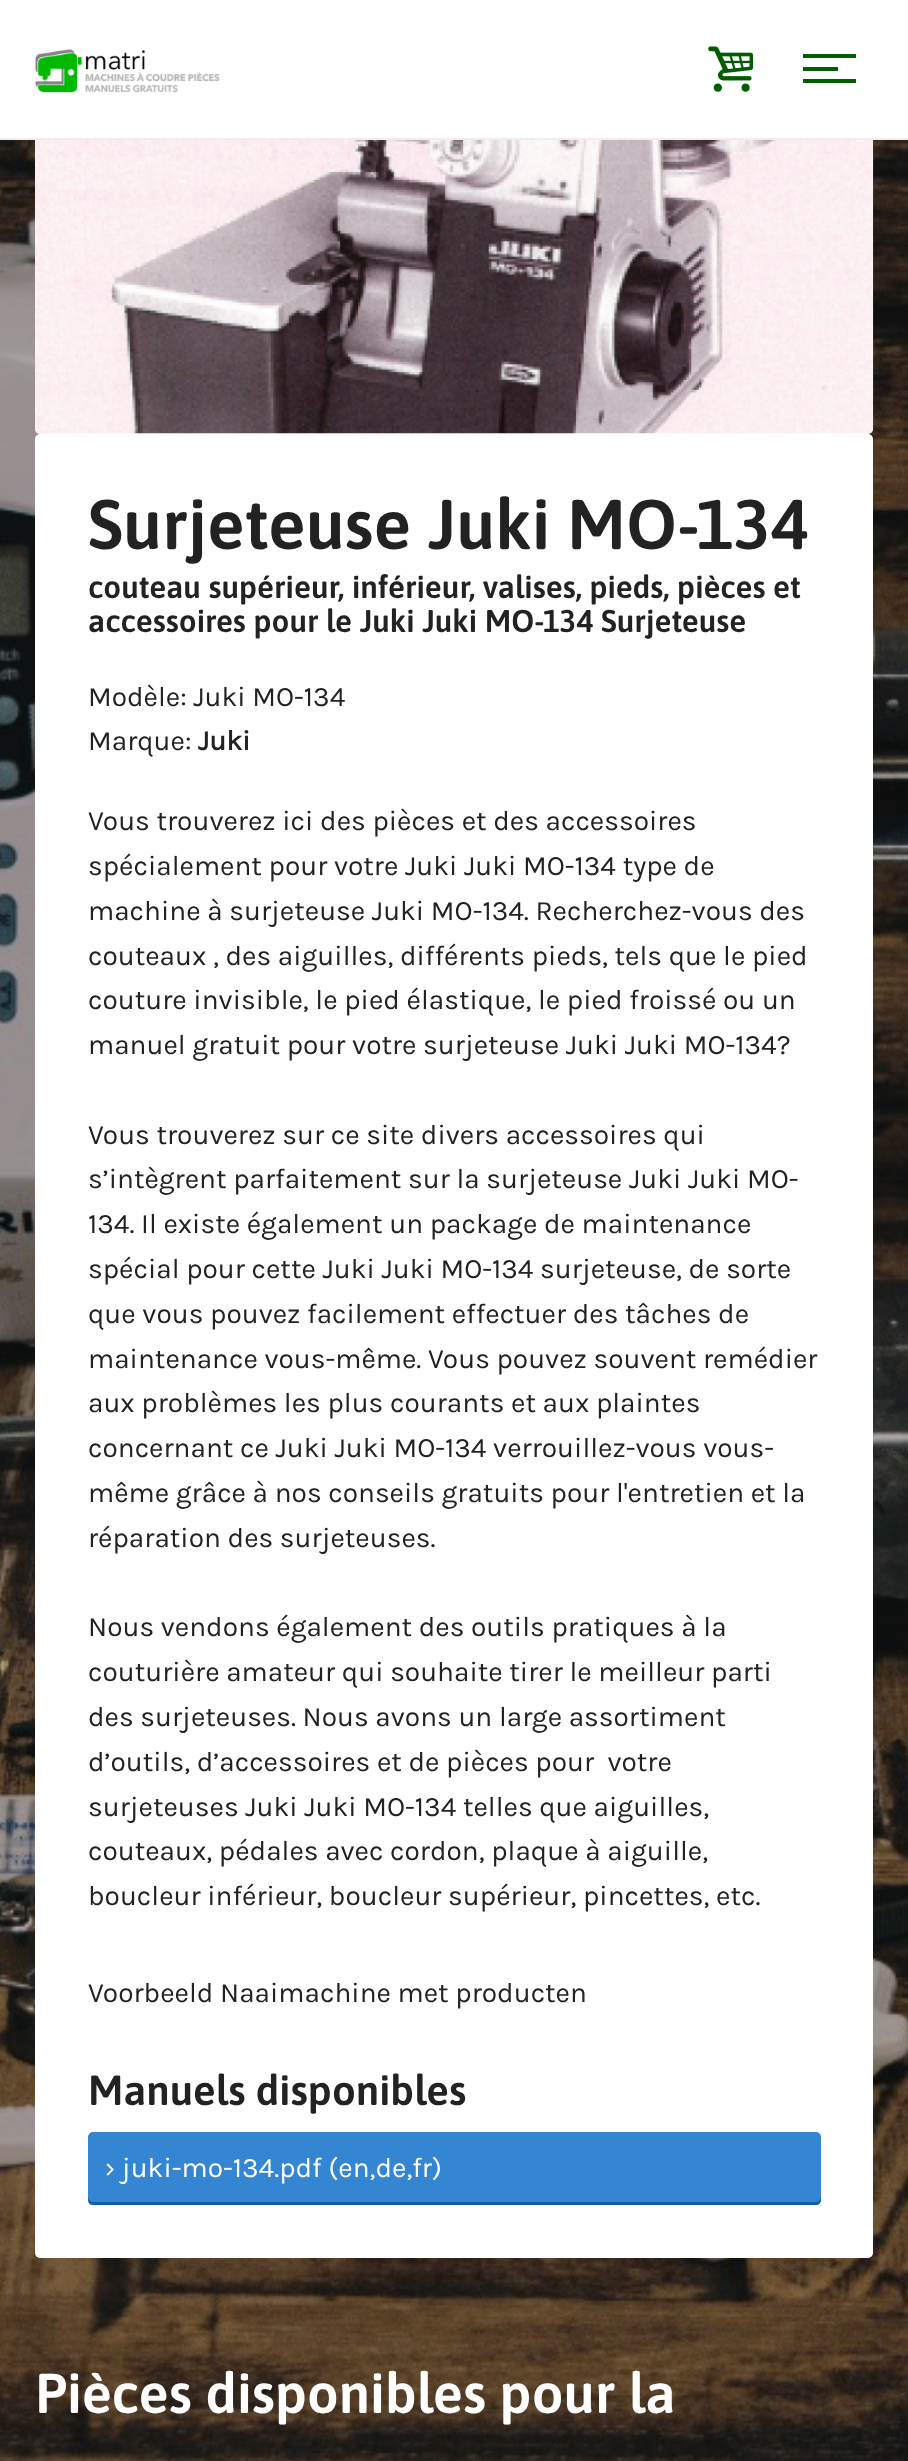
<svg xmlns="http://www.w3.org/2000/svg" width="908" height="2461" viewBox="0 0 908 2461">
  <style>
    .t1 { font: 600 70px Asap; fill: #222; }
    .t2 { font: 600 31.5px Asap; fill: #222; }
    .t3 { font: 28px Karla; fill: #222; }
    .t4 { font: bold 28px Karla; fill: #222; }
    .t5 { font: 600 42px Asap; fill: #222; }
    .t6 { font: 28px Karla; fill: #fff; }
    .t7 { font: 600 56px Asap; fill: #fff; }
  </style>
  <rect width="100%" height="100%" fill="#fff"/>
  <image x="0" y="140" width="908" height="2321" href="images/3.png"/>
  <rect x="35" y="-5" width="838" height="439" rx="5" fill="#fff"/>
  <rect x="0" y="138" width="908" height="2" fill="#eee"/>
  <image x="35" y="49" width="185" height="44" href="images/1.png"/>
  <image x="708" y="46" width="46" height="46" href="images/2.png"/>
  <rect x="803" y="54" width="53" height="4" fill="#005e00"/>
  <rect x="803" y="67" width="35" height="4" fill="#005e00"/>
  <rect x="803" y="79" width="53" height="4" fill="#005e00"/>
  <image x="35" y="140" width="839" height="294" href="images/4.png"/>
  <rect x="35" y="434" width="838" height="1824" rx="5" fill="#fff"/>
  <text x="88" y="549" class="t1">Surjeteuse Juki MO-134</text>
  <text x="88" y="598" class="t2">couteau supérieur, inférieur, valises, pieds, pièces et</text>
  <text x="88" y="632" class="t2">accessoires pour le Juki Juki MO-134 Surjeteuse</text>
  <text x="88" y="706" class="t3">Modèle: Juki MO-134</text>
  <text x="88" y="750" class="t3">Marque:</text>
  <text x="198" y="750" class="t4">Juki</text>
  <text x="88" y="830" class="t3">Vous trouverez ici des pièces et des accessoires</text>
  <text x="88" y="875" class="t3">spécialement pour votre Juki Juki MO-134 type de</text>
  <text x="88" y="920" class="t3">machine à surjeteuse Juki MO-134. Recherchez-vous des</text>
  <text x="88" y="965" class="t3">couteaux , des aiguilles, différents pieds, tels que le pied</text>
  <text x="88" y="1009" class="t3">couture invisible, le pied élastique, le pied froissé ou un</text>
  <text x="88" y="1054" class="t3">manuel gratuit pour votre surjeteuse Juki Juki MO-134?</text>
  <text x="88" y="1144" class="t3">Vous trouverez sur ce site divers accessoires qui</text>
  <text x="88" y="1188" class="t3">s’intègrent parfaitement sur la surjeteuse Juki Juki MO-</text>
  <text x="88" y="1233" class="t3">134. Il existe également un package de maintenance</text>
  <text x="88" y="1278" class="t3">spécial pour cette Juki Juki MO-134 surjeteuse, de sorte</text>
  <text x="88" y="1323" class="t3">que vous pouvez facilement effectuer des tâches de</text>
  <text x="88" y="1368" class="t3">maintenance vous-même. Vous pouvez souvent remédier</text>
  <text x="88" y="1412" class="t3">aux problèmes les plus courants et aux plaintes</text>
  <text x="88" y="1457" class="t3">concernant ce Juki Juki MO-134 verrouillez-vous vous-</text>
  <text x="88" y="1502" class="t3">même grâce à nos conseils gratuits pour l'entretien et la</text>
  <text x="88" y="1547" class="t3">réparation des surjeteuses.</text>
  <text x="88" y="1636" class="t3">Nous vendons également des outils pratiques à la</text>
  <text x="88" y="1681" class="t3">couturière amateur qui souhaite tirer le meilleur parti</text>
  <text x="88" y="1726" class="t3">des surjeteuses. Nous avons un large assortiment</text>
  <text x="88" y="1771" class="t3" xml:space="preserve">d’outils, d’accessoires et de pièces pour  votre</text>
  <text x="88" y="1816" class="t3">surjeteuses Juki Juki MO-134 telles que aiguilles,</text>
  <text x="88" y="1860" class="t3">couteaux, pédales avec cordon, plaque à aiguille,</text>
  <text x="88" y="1905" class="t3">boucleur inférieur, boucleur supérieur, pincettes, etc.</text>
  <text x="88" y="2002" class="t3">Voorbeeld Naaimachine met producten</text>
  <text x="88" y="2105" class="t5">Manuels disponibles</text>
  <rect x="88" y="2132" width="733" height="73" rx="5" fill="#3486d3"/>
  <path d="M88 2196C88 2200 88 2205 93 2205H816C821 2205 821 2200 821 2196C821 2199 818 2202 816 2202H93C90 2202 88 2199 88 2196Z" fill="#155da1"/>
  <text x="105" y="2177" class="t6">› juki-mo-134.pdf (en,de,fr)</text>
  <text x="35" y="2413" class="t7">Pièces disponibles pour la</text>
</svg>
